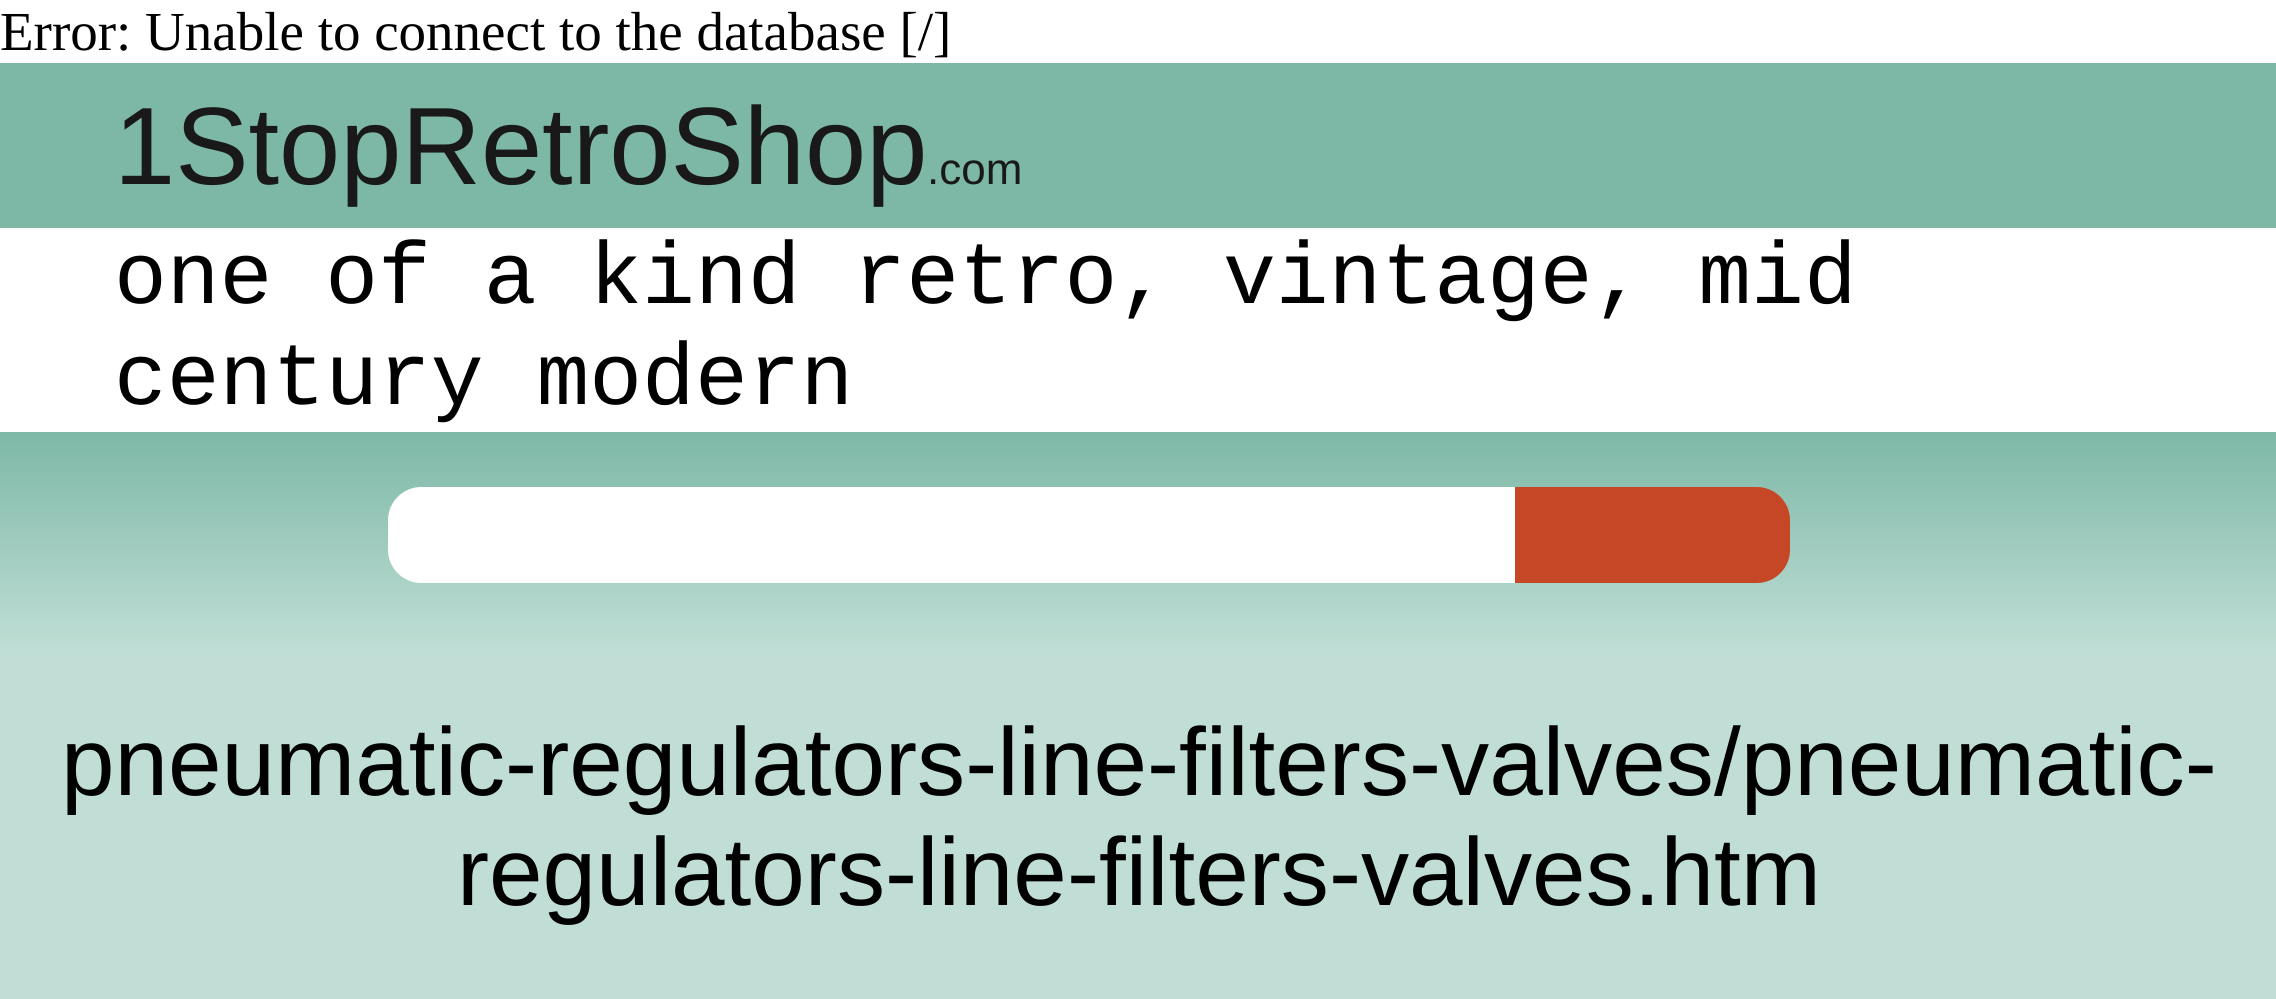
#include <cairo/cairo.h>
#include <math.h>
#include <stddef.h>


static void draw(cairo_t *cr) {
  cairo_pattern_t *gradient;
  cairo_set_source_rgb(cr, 1, 1, 1);
  cairo_paint(cr);
  cairo_set_source_rgb(cr, 125 / 255.0, 184 / 255.0, 166 / 255.0);
  cairo_rectangle(cr, 0, 63, 2276, 165);
  cairo_fill(cr);
  gradient = cairo_pattern_create_linear(1139, 432, 1139, 652);
  cairo_pattern_add_color_stop_rgba(gradient, 0, 125 / 255.0, 184 / 255.0, 166 / 255.0, 1);
  cairo_pattern_add_color_stop_rgba(gradient, 1, 192 / 255.0, 222 / 255.0, 213 / 255.0, 1);
  cairo_set_source(cr, gradient);
  cairo_pattern_destroy(gradient);
  cairo_rectangle(cr, 0, 432, 2276, 220);
  cairo_fill(cr);
  cairo_set_source_rgb(cr, 1, 1, 1);
  cairo_new_path(cr);
  cairo_move_to(cr, 421, 487);
  cairo_line_to(cr, 1515, 487);
  cairo_line_to(cr, 1515, 583);
  cairo_line_to(cr, 421, 583);
  cairo_curve_to(cr, 403, 583, 388, 568, 388, 550);
  cairo_line_to(cr, 388, 520);
  cairo_curve_to(cr, 388, 502, 403, 487, 421, 487);
  cairo_close_path(cr);
  cairo_fill(cr);
  cairo_set_source_rgb(cr, 198 / 255.0, 71 / 255.0, 38 / 255.0);
  cairo_new_path(cr);
  cairo_move_to(cr, 1515, 487);
  cairo_line_to(cr, 1757, 487);
  cairo_curve_to(cr, 1775, 487, 1790, 502, 1790, 520);
  cairo_line_to(cr, 1790, 550);
  cairo_curve_to(cr, 1790, 568, 1775, 583, 1757, 583);
  cairo_line_to(cr, 1515, 583);
  cairo_close_path(cr);
  cairo_fill(cr);
  cairo_set_source_rgb(cr, 192 / 255.0, 222 / 255.0, 213 / 255.0);
  cairo_rectangle(cr, 0, 652, 2276, 347);
  cairo_fill(cr);
  cairo_select_font_face(cr, "Liberation Serif", CAIRO_FONT_SLANT_NORMAL, CAIRO_FONT_WEIGHT_NORMAL);
  cairo_set_font_size(cr, 55);
  cairo_set_source_rgb(cr, 0, 0, 0);
  cairo_move_to(cr, 0, 50);
  cairo_show_text(cr, "Error: Unable to connect to the database [/]");
  cairo_select_font_face(cr, "Liberation Sans", CAIRO_FONT_SLANT_NORMAL, CAIRO_FONT_WEIGHT_NORMAL);
  cairo_set_font_size(cr, 110);
  cairo_set_source_rgb(cr, 25 / 255.0, 25 / 255.0, 25 / 255.0);
  cairo_move_to(cr, 114, 184);
  cairo_show_text(cr, "1StopRetroShop");
  cairo_set_font_size(cr, 44);
  cairo_move_to(cr, 927, 184);
  cairo_show_text(cr, ".com");
  cairo_select_font_face(cr, "Liberation Mono", CAIRO_FONT_SLANT_NORMAL, CAIRO_FONT_WEIGHT_NORMAL);
  cairo_set_font_size(cr, 88);
  cairo_set_source_rgb(cr, 0, 0, 0);
  cairo_move_to(cr, 114, 303);
  cairo_show_text(cr, "one of a kind retro, vintage, mid");
  cairo_move_to(cr, 114, 404);
  cairo_show_text(cr, "century modern");
  cairo_select_font_face(cr, "Liberation Sans", CAIRO_FONT_SLANT_NORMAL, CAIRO_FONT_WEIGHT_NORMAL);
  cairo_set_font_size(cr, 96.25);
  cairo_move_to(cr, 61, 795);
  cairo_show_text(cr, "pneumatic-regulators-line-filters-valves/pneumatic-");
  cairo_move_to(cr, 457, 905);
  cairo_show_text(cr, "regulators-line-filters-valves.htm");
}

int main(void) {
  cairo_surface_t *surface = cairo_image_surface_create(CAIRO_FORMAT_RGB24, 2276, 999);
  cairo_t *cr = cairo_create(surface);
  cairo_font_options_t *options = cairo_font_options_create();
  cairo_font_options_set_hint_metrics(options, CAIRO_HINT_METRICS_OFF);
  cairo_font_options_set_hint_style(options, CAIRO_HINT_STYLE_NONE);
  cairo_set_font_options(cr, options);
  cairo_set_miter_limit(cr, 4);
  draw(cr);
  cairo_surface_write_to_png(surface, "out.png");
  cairo_font_options_destroy(options);
  cairo_destroy(cr);
  cairo_surface_destroy(surface);
  return 0;
}
